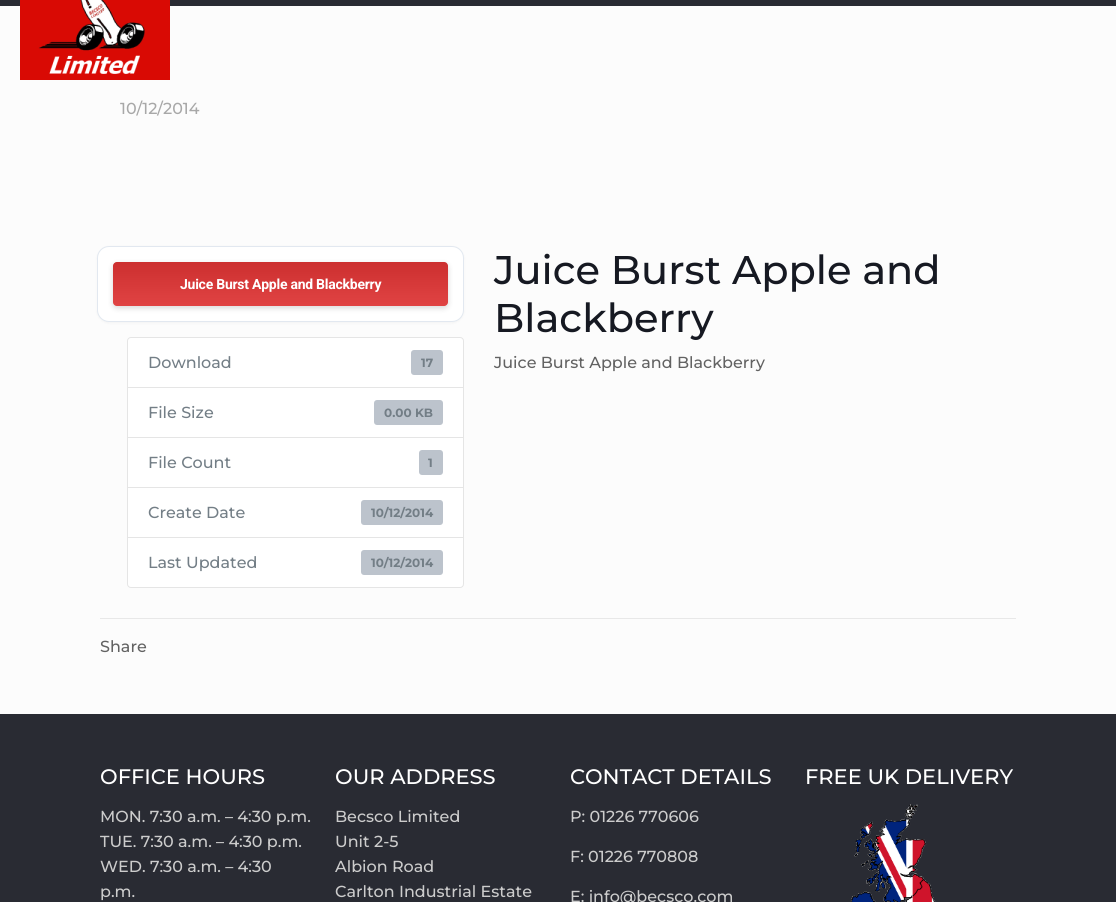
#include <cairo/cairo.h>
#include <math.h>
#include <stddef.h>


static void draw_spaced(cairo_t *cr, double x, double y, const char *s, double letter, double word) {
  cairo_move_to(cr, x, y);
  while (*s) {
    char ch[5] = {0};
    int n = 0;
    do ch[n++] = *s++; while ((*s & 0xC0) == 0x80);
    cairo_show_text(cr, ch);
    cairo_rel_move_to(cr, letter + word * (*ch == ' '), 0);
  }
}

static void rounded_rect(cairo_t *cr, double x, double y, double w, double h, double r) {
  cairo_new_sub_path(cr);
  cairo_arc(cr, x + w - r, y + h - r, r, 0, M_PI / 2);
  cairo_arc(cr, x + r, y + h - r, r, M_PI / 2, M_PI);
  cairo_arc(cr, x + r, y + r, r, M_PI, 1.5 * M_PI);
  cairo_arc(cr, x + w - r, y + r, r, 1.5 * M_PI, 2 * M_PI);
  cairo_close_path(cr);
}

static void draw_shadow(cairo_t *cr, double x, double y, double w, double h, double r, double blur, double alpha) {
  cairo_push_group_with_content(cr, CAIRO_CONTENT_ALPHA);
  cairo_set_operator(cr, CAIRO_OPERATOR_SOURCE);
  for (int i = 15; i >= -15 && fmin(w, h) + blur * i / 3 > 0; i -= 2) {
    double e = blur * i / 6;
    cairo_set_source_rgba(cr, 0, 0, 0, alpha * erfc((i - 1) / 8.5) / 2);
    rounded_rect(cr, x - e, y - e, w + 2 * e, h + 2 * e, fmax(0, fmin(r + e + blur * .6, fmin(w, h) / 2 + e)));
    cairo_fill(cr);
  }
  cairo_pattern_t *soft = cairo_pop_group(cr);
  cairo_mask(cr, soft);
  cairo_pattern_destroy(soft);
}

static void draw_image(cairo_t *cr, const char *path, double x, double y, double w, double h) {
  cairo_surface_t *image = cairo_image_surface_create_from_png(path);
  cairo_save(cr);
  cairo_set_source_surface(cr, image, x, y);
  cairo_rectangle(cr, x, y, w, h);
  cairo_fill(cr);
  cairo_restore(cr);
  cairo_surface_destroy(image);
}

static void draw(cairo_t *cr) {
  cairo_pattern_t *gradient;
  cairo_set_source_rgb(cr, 252 / 255.0, 252 / 255.0, 252 / 255.0);
  cairo_paint(cr);
  cairo_set_source_rgb(cr, 41 / 255.0, 43 / 255.0, 51 / 255.0);
  cairo_rectangle(cr, 0, 0, 1116, 6);
  cairo_fill(cr);
  draw_image(cr, "images/1.png", 20, 0, 150, 80);
  cairo_set_source_rgb(cr, 0, 0, 0);
  draw_shadow(cr, 97, 247, 367, 76, 12, 1.5, 0.04);
  cairo_set_source_rgb(cr, 1, 1, 1);
  rounded_rect(cr, 97.5, 246.5, 366, 75, 11.5);
  cairo_fill_preserve(cr);
  cairo_set_source_rgb(cr, 226 / 255.0, 232 / 255.0, 240 / 255.0);
  cairo_set_line_width(cr, 1);
  cairo_stroke(cr);
  cairo_set_source_rgb(cr, 0, 0, 0);
  draw_shadow(cr, 113, 264, 335, 44, 4, 3, 0.15);
  cairo_set_source_rgb(cr, 221 / 255.0, 51 / 255.0, 51 / 255.0);
  rounded_rect(cr, 113, 262, 335, 44, 4);
  cairo_fill(cr);
  gradient = cairo_pattern_create_linear(281, 262, 281, 306);
  cairo_pattern_add_color_stop_rgba(gradient, 0, 0, 0, 0, 0.08);
  cairo_pattern_add_color_stop_rgba(gradient, 1, 1, 1, 1, 0.08);
  cairo_set_source(cr, gradient);
  cairo_pattern_destroy(gradient);
  rounded_rect(cr, 113, 262, 335, 44, 4);
  cairo_fill(cr);
  cairo_set_source_rgb(cr, 1, 1, 1);
  cairo_new_path(cr);
  cairo_move_to(cr, 131, 337.5);
  cairo_line_to(cr, 460, 337.5);
  cairo_curve_to(cr, 462, 337.5, 463.5, 339, 463.5, 341);
  cairo_line_to(cr, 463.5, 387.5);
  cairo_line_to(cr, 127.5, 387.5);
  cairo_line_to(cr, 127.5, 341);
  cairo_curve_to(cr, 127.5, 339, 129, 337.5, 131, 337.5);
  cairo_close_path(cr);
  cairo_fill_preserve(cr);
  cairo_set_source_rgb(cr, 229 / 255.0, 229 / 255.0, 229 / 255.0);
  cairo_stroke(cr);
  cairo_set_source_rgb(cr, 188 / 255.0, 195 / 255.0, 204 / 255.0);
  rounded_rect(cr, 411, 350, 32, 25, 3);
  cairo_fill(cr);
  cairo_set_source_rgb(cr, 1, 1, 1);
  cairo_rectangle(cr, 127.5, 387.5, 336, 50);
  cairo_fill_preserve(cr);
  cairo_set_source_rgb(cr, 229 / 255.0, 229 / 255.0, 229 / 255.0);
  cairo_stroke(cr);
  cairo_set_source_rgb(cr, 188 / 255.0, 195 / 255.0, 204 / 255.0);
  rounded_rect(cr, 374, 400, 69, 25, 3);
  cairo_fill(cr);
  cairo_set_source_rgb(cr, 1, 1, 1);
  cairo_rectangle(cr, 127.5, 437.5, 336, 50);
  cairo_fill_preserve(cr);
  cairo_set_source_rgb(cr, 229 / 255.0, 229 / 255.0, 229 / 255.0);
  cairo_stroke(cr);
  cairo_set_source_rgb(cr, 188 / 255.0, 195 / 255.0, 204 / 255.0);
  rounded_rect(cr, 419, 450, 24, 25, 3);
  cairo_fill(cr);
  cairo_set_source_rgb(cr, 1, 1, 1);
  cairo_rectangle(cr, 127.5, 487.5, 336, 50);
  cairo_fill_preserve(cr);
  cairo_set_source_rgb(cr, 229 / 255.0, 229 / 255.0, 229 / 255.0);
  cairo_stroke(cr);
  cairo_set_source_rgb(cr, 188 / 255.0, 195 / 255.0, 204 / 255.0);
  rounded_rect(cr, 361, 500, 82, 25, 3);
  cairo_fill(cr);
  cairo_set_source_rgb(cr, 1, 1, 1);
  cairo_new_path(cr);
  cairo_move_to(cr, 127.5, 537.5);
  cairo_line_to(cr, 463.5, 537.5);
  cairo_line_to(cr, 463.5, 584);
  cairo_curve_to(cr, 463.5, 586, 462, 587.5, 460, 587.5);
  cairo_line_to(cr, 131, 587.5);
  cairo_curve_to(cr, 129, 587.5, 127.5, 586, 127.5, 584);
  cairo_close_path(cr);
  cairo_fill_preserve(cr);
  cairo_set_source_rgb(cr, 229 / 255.0, 229 / 255.0, 229 / 255.0);
  cairo_stroke(cr);
  cairo_set_source_rgb(cr, 188 / 255.0, 195 / 255.0, 204 / 255.0);
  rounded_rect(cr, 361, 550, 82, 25, 3);
  cairo_fill(cr);
  cairo_set_source_rgb(cr, 232 / 255.0, 232 / 255.0, 232 / 255.0);
  cairo_rectangle(cr, 100, 618, 916, 1);
  cairo_fill(cr);
  cairo_set_source_rgb(cr, 41 / 255.0, 43 / 255.0, 51 / 255.0);
  cairo_rectangle(cr, 0, 714, 1116, 188);
  cairo_fill(cr);
  draw_image(cr, "images/2.png", 850, 804, 86, 98);
  cairo_select_font_face(cr, "Montserrat Thin", CAIRO_FONT_SLANT_NORMAL, CAIRO_FONT_WEIGHT_NORMAL);
  cairo_set_font_size(cr, 16);
  cairo_set_source_rgb(cr, 168 / 255.0, 168 / 255.0, 168 / 255.0);
  cairo_move_to(cr, 120, 114);
  cairo_show_text(cr, "10/12/2014");
  cairo_select_font_face(cr, "Roboto", CAIRO_FONT_SLANT_NORMAL, CAIRO_FONT_WEIGHT_BOLD);
  cairo_set_font_size(cr, 14);
  cairo_set_source_rgb(cr, 1, 1, 1);
  draw_spaced(cr, 180, 289, "Juice Burst Apple and Blackberry", -0.25, 0);
  cairo_select_font_face(cr, "Montserrat Thin", CAIRO_FONT_SLANT_NORMAL, CAIRO_FONT_WEIGHT_NORMAL);
  cairo_set_font_size(cr, 16);
  cairo_set_source_rgb(cr, 115 / 255.0, 126 / 255.0, 134 / 255.0);
  cairo_move_to(cr, 148, 368);
  cairo_show_text(cr, "Download");
  cairo_select_font_face(cr, "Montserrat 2 Thin", CAIRO_FONT_SLANT_NORMAL, CAIRO_FONT_WEIGHT_NORMAL);
  cairo_set_font_size(cr, 12);
  cairo_move_to(cr, 421, 367);
  cairo_show_text(cr, "17");
  cairo_select_font_face(cr, "Montserrat Thin", CAIRO_FONT_SLANT_NORMAL, CAIRO_FONT_WEIGHT_NORMAL);
  cairo_set_font_size(cr, 16);
  cairo_move_to(cr, 148, 418);
  cairo_show_text(cr, "File Size");
  cairo_select_font_face(cr, "Montserrat 2 Thin", CAIRO_FONT_SLANT_NORMAL, CAIRO_FONT_WEIGHT_NORMAL);
  cairo_set_font_size(cr, 12);
  cairo_move_to(cr, 384, 417);
  cairo_show_text(cr, "0.00 KB");
  cairo_select_font_face(cr, "Montserrat Thin", CAIRO_FONT_SLANT_NORMAL, CAIRO_FONT_WEIGHT_NORMAL);
  cairo_set_font_size(cr, 16);
  cairo_move_to(cr, 148, 468);
  cairo_show_text(cr, "File Count");
  cairo_select_font_face(cr, "Montserrat 2 Thin", CAIRO_FONT_SLANT_NORMAL, CAIRO_FONT_WEIGHT_NORMAL);
  cairo_set_font_size(cr, 12);
  cairo_move_to(cr, 428, 467);
  cairo_show_text(cr, "1");
  cairo_select_font_face(cr, "Montserrat Thin", CAIRO_FONT_SLANT_NORMAL, CAIRO_FONT_WEIGHT_NORMAL);
  cairo_set_font_size(cr, 16);
  cairo_move_to(cr, 148, 518);
  cairo_show_text(cr, "Create Date");
  cairo_select_font_face(cr, "Montserrat 2 Thin", CAIRO_FONT_SLANT_NORMAL, CAIRO_FONT_WEIGHT_NORMAL);
  cairo_set_font_size(cr, 12);
  cairo_move_to(cr, 371, 517);
  cairo_show_text(cr, "10/12/2014");
  cairo_select_font_face(cr, "Montserrat Thin", CAIRO_FONT_SLANT_NORMAL, CAIRO_FONT_WEIGHT_NORMAL);
  cairo_set_font_size(cr, 16);
  cairo_move_to(cr, 148, 568);
  cairo_show_text(cr, "Last Updated");
  cairo_select_font_face(cr, "Montserrat 2 Thin", CAIRO_FONT_SLANT_NORMAL, CAIRO_FONT_WEIGHT_NORMAL);
  cairo_set_font_size(cr, 12);
  cairo_move_to(cr, 371, 567);
  cairo_show_text(cr, "10/12/2014");
  cairo_select_font_face(cr, "Montserrat Thin", CAIRO_FONT_SLANT_NORMAL, CAIRO_FONT_WEIGHT_NORMAL);
  cairo_set_font_size(cr, 40);
  cairo_set_source_rgb(cr, 22 / 255.0, 25 / 255.0, 34 / 255.0);
  cairo_move_to(cr, 494, 284);
  cairo_show_text(cr, "Juice Burst Apple and");
  cairo_move_to(cr, 494, 332);
  cairo_show_text(cr, "Blackberry");
  cairo_set_font_size(cr, 16);
  cairo_set_source_rgb(cr, 98 / 255.0, 98 / 255.0, 98 / 255.0);
  cairo_move_to(cr, 494, 368);
  cairo_show_text(cr, "Juice Burst Apple and Blackberry");
  cairo_move_to(cr, 100, 652);
  cairo_show_text(cr, "Share");
  cairo_set_font_size(cr, 21);
  cairo_set_source_rgb(cr, 1, 1, 1);
  cairo_move_to(cr, 100, 784);
  cairo_show_text(cr, "OFFICE HOURS");
  cairo_set_font_size(cr, 16);
  cairo_set_source_rgb(cr, 204 / 255.0, 204 / 255.0, 204 / 255.0);
  cairo_move_to(cr, 100, 822);
  cairo_show_text(cr, "MON. 7:30 a.m. – 4:30 p.m.");
  cairo_move_to(cr, 100, 847);
  cairo_show_text(cr, "TUE. 7:30 a.m. – 4:30 p.m.");
  cairo_move_to(cr, 100, 872);
  cairo_show_text(cr, "WED. 7:30 a.m. – 4:30");
  cairo_move_to(cr, 100, 897);
  cairo_show_text(cr, "p.m.");
  cairo_set_font_size(cr, 21);
  cairo_set_source_rgb(cr, 1, 1, 1);
  cairo_move_to(cr, 335, 784);
  cairo_show_text(cr, "OUR ADDRESS");
  cairo_set_font_size(cr, 16);
  cairo_set_source_rgb(cr, 204 / 255.0, 204 / 255.0, 204 / 255.0);
  cairo_move_to(cr, 335, 822);
  cairo_show_text(cr, "Becsco Limited");
  cairo_move_to(cr, 335, 847);
  cairo_show_text(cr, "Unit 2-5");
  cairo_move_to(cr, 335, 872);
  cairo_show_text(cr, "Albion Road");
  cairo_move_to(cr, 335, 897);
  cairo_show_text(cr, "Carlton Industrial Estate");
  cairo_set_font_size(cr, 21);
  cairo_set_source_rgb(cr, 1, 1, 1);
  cairo_move_to(cr, 570, 784);
  cairo_show_text(cr, "CONTACT DETAILS");
  cairo_set_font_size(cr, 16);
  cairo_set_source_rgb(cr, 204 / 255.0, 204 / 255.0, 204 / 255.0);
  cairo_move_to(cr, 570, 822);
  cairo_show_text(cr, "P: 01226 770606");
  cairo_move_to(cr, 570, 862);
  cairo_show_text(cr, "F: 01226 770808");
  cairo_move_to(cr, 570, 902);
  cairo_show_text(cr, "E: info@becsco.com");
  cairo_set_font_size(cr, 21);
  cairo_set_source_rgb(cr, 1, 1, 1);
  cairo_move_to(cr, 805, 784);
  cairo_show_text(cr, "FREE UK DELIVERY");
}

int main(void) {
  cairo_surface_t *surface = cairo_image_surface_create(CAIRO_FORMAT_RGB24, 1116, 902);
  cairo_t *cr = cairo_create(surface);
  cairo_font_options_t *options = cairo_font_options_create();
  cairo_font_options_set_hint_metrics(options, CAIRO_HINT_METRICS_OFF);
  cairo_font_options_set_hint_style(options, CAIRO_HINT_STYLE_NONE);
  cairo_set_font_options(cr, options);
  cairo_set_miter_limit(cr, 4);
  draw(cr);
  cairo_surface_write_to_png(surface, "out.png");
  cairo_font_options_destroy(options);
  cairo_destroy(cr);
  cairo_surface_destroy(surface);
  return 0;
}
